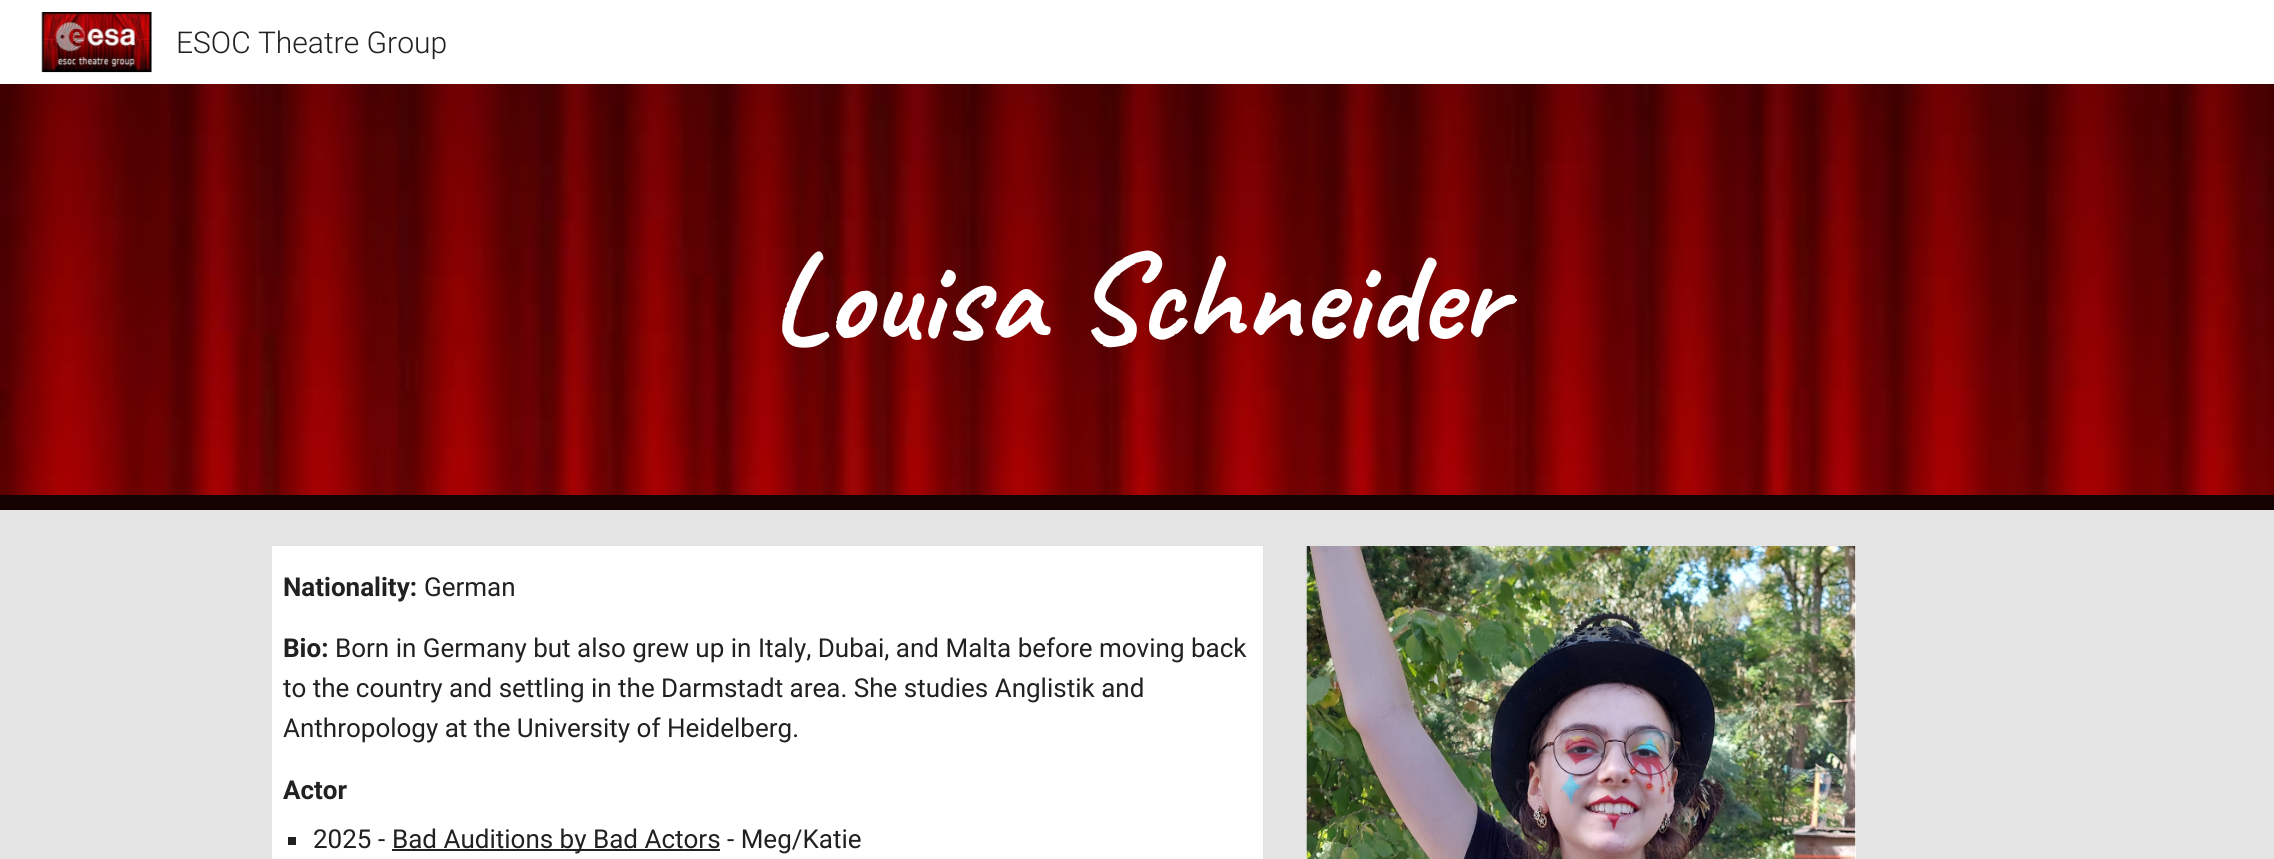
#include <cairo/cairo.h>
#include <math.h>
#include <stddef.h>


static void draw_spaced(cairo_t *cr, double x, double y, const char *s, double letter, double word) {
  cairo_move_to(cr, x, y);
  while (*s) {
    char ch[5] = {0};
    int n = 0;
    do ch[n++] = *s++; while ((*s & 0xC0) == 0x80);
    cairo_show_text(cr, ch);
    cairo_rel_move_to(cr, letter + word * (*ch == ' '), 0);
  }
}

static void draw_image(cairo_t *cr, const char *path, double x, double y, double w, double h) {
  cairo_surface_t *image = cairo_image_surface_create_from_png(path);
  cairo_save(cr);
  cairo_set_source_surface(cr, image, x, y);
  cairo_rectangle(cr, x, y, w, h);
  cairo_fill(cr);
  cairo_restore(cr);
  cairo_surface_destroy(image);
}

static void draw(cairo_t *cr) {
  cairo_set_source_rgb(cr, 229 / 255.0, 228 / 255.0, 228 / 255.0);
  cairo_paint(cr);
  cairo_set_source_rgb(cr, 1, 1, 1);
  cairo_rectangle(cr, 0, 0, 2274, 84);
  cairo_fill(cr);
  draw_image(cr, "images/1.png", 41, 12, 111, 61);
  draw_image(cr, "images/2.png", 0, 84, 2274, 411);
  cairo_set_source_rgb(cr, 21 / 255.0, 3 / 255.0, 3 / 255.0);
  cairo_rectangle(cr, 0, 495, 2274, 15);
  cairo_fill(cr);
  cairo_set_source_rgb(cr, 1, 1, 1);
  cairo_rectangle(cr, 272, 546, 991, 313);
  cairo_fill(cr);
  cairo_set_source_rgb(cr, 33 / 255.0, 33 / 255.0, 33 / 255.0);
  cairo_rectangle(cr, 288, 837, 8, 8);
  cairo_fill(cr);
  cairo_rectangle(cr, 392, 849, 328, 2);
  cairo_fill(cr);
  cairo_set_source_rgb(cr, 1, 1, 1);
  cairo_rectangle(cr, 1855, 546, 1, 313);
  cairo_fill(cr);
  draw_image(cr, "images/3.png", 1306, 546, 550, 313);
  cairo_select_font_face(cr, "Roboto Light", CAIRO_FONT_SLANT_NORMAL, CAIRO_FONT_WEIGHT_NORMAL);
  cairo_set_font_size(cr, 30);
  cairo_set_source_rgb(cr, 33 / 255.0, 33 / 255.0, 33 / 255.0);
  cairo_move_to(cr, 176, 53);
  cairo_show_text(cr, "ESOC Theatre Group");
  cairo_select_font_face(cr, "Caveat", CAIRO_FONT_SLANT_NORMAL, CAIRO_FONT_WEIGHT_BOLD);
  cairo_set_font_size(cr, 126);
  cairo_set_source_rgb(cr, 1, 1, 1);
  draw_spaced(cr, 771, 339, "Louisa Schneider", 0, 2);
  cairo_select_font_face(cr, "Roboto", CAIRO_FONT_SLANT_NORMAL, CAIRO_FONT_WEIGHT_BOLD);
  cairo_set_font_size(cr, 26);
  cairo_set_source_rgb(cr, 33 / 255.0, 33 / 255.0, 33 / 255.0);
  cairo_move_to(cr, 283, 596);
  cairo_show_text(cr, "Nationality:");
  cairo_select_font_face(cr, "Roboto", CAIRO_FONT_SLANT_NORMAL, CAIRO_FONT_WEIGHT_NORMAL);
  cairo_move_to(cr, 424, 596);
  cairo_show_text(cr, "German");
  cairo_select_font_face(cr, "Roboto", CAIRO_FONT_SLANT_NORMAL, CAIRO_FONT_WEIGHT_BOLD);
  cairo_move_to(cr, 283, 657);
  cairo_show_text(cr, "Bio:");
  cairo_select_font_face(cr, "Roboto", CAIRO_FONT_SLANT_NORMAL, CAIRO_FONT_WEIGHT_NORMAL);
  cairo_move_to(cr, 335, 657);
  cairo_show_text(cr, "Born in Germany but also grew up in Italy, Dubai, and Malta before moving back");
  cairo_move_to(cr, 283, 697);
  cairo_show_text(cr, "to the country and settling in the Darmstadt area. She studies Anglistik and");
  cairo_move_to(cr, 283, 737);
  cairo_show_text(cr, "Anthropology at the University of Heidelberg.");
  cairo_select_font_face(cr, "Roboto", CAIRO_FONT_SLANT_NORMAL, CAIRO_FONT_WEIGHT_BOLD);
  cairo_move_to(cr, 283, 799);
  cairo_show_text(cr, "Actor");
  cairo_select_font_face(cr, "Roboto", CAIRO_FONT_SLANT_NORMAL, CAIRO_FONT_WEIGHT_NORMAL);
  cairo_move_to(cr, 313, 848);
  cairo_show_text(cr, "2025 -");
  cairo_move_to(cr, 392, 848);
  cairo_show_text(cr, "Bad Auditions by Bad Actors - Meg/Katie");
}

int main(void) {
  cairo_surface_t *surface = cairo_image_surface_create(CAIRO_FORMAT_RGB24, 2274, 859);
  cairo_t *cr = cairo_create(surface);
  cairo_font_options_t *options = cairo_font_options_create();
  cairo_font_options_set_hint_metrics(options, CAIRO_HINT_METRICS_OFF);
  cairo_font_options_set_hint_style(options, CAIRO_HINT_STYLE_NONE);
  cairo_set_font_options(cr, options);
  cairo_set_miter_limit(cr, 4);
  draw(cr);
  cairo_surface_write_to_png(surface, "out.png");
  cairo_font_options_destroy(options);
  cairo_destroy(cr);
  cairo_surface_destroy(surface);
  return 0;
}
